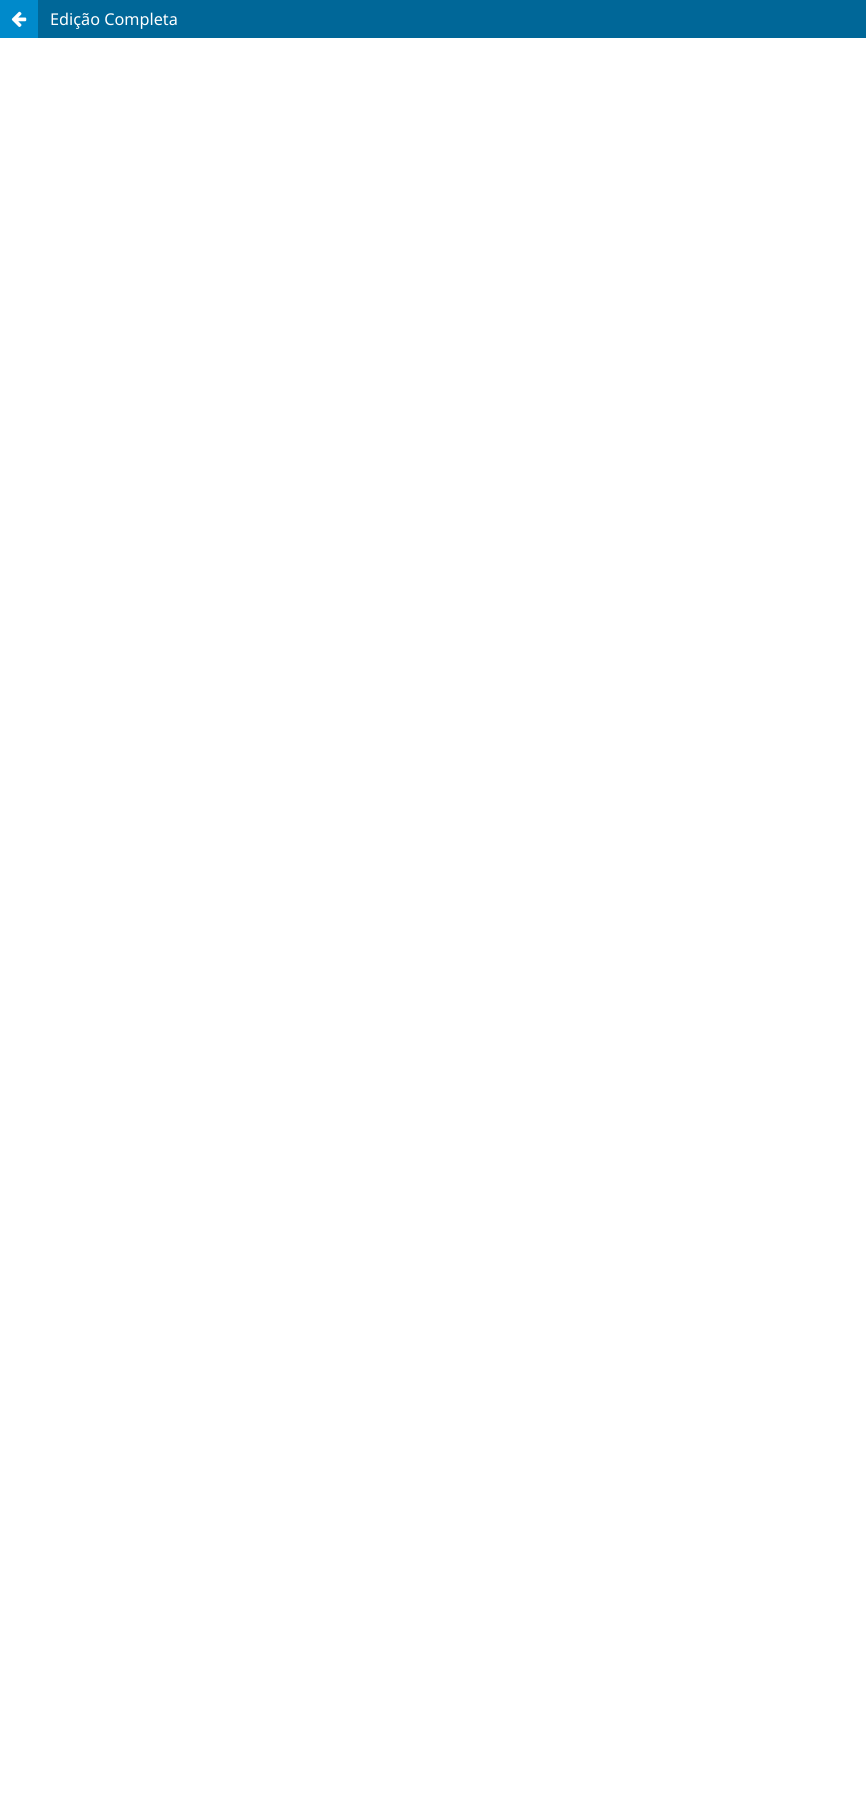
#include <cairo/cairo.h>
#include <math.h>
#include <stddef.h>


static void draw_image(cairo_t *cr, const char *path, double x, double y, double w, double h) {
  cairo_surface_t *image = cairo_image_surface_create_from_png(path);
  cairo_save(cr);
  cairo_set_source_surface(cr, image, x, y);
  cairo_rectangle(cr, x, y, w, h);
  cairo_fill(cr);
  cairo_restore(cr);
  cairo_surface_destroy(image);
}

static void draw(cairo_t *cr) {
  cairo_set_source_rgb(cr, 1, 1, 1);
  cairo_paint(cr);
  cairo_set_source_rgb(cr, 0, 103 / 255.0, 152 / 255.0);
  cairo_rectangle(cr, 38, 0, 828, 38);
  cairo_fill(cr);
  cairo_set_source_rgb(cr, 0, 138 / 255.0, 203 / 255.0);
  cairo_rectangle(cr, 0, 0, 38, 38);
  cairo_fill(cr);
  draw_image(cr, "images/1.png", 11, 11, 16, 16);
  cairo_select_font_face(cr, "Noto Sans", CAIRO_FONT_SLANT_NORMAL, CAIRO_FONT_WEIGHT_NORMAL);
  cairo_set_font_size(cr, 16.25);
  cairo_set_source_rgb(cr, 1, 1, 1);
  cairo_move_to(cr, 50, 25);
  cairo_show_text(cr, "Edição Completa");
}

int main(void) {
  cairo_surface_t *surface = cairo_image_surface_create(CAIRO_FORMAT_RGB24, 866, 1806);
  cairo_t *cr = cairo_create(surface);
  cairo_font_options_t *options = cairo_font_options_create();
  cairo_font_options_set_hint_metrics(options, CAIRO_HINT_METRICS_OFF);
  cairo_font_options_set_hint_style(options, CAIRO_HINT_STYLE_NONE);
  cairo_set_font_options(cr, options);
  cairo_set_miter_limit(cr, 4);
  draw(cr);
  cairo_surface_write_to_png(surface, "out.png");
  cairo_font_options_destroy(options);
  cairo_destroy(cr);
  cairo_surface_destroy(surface);
  return 0;
}
